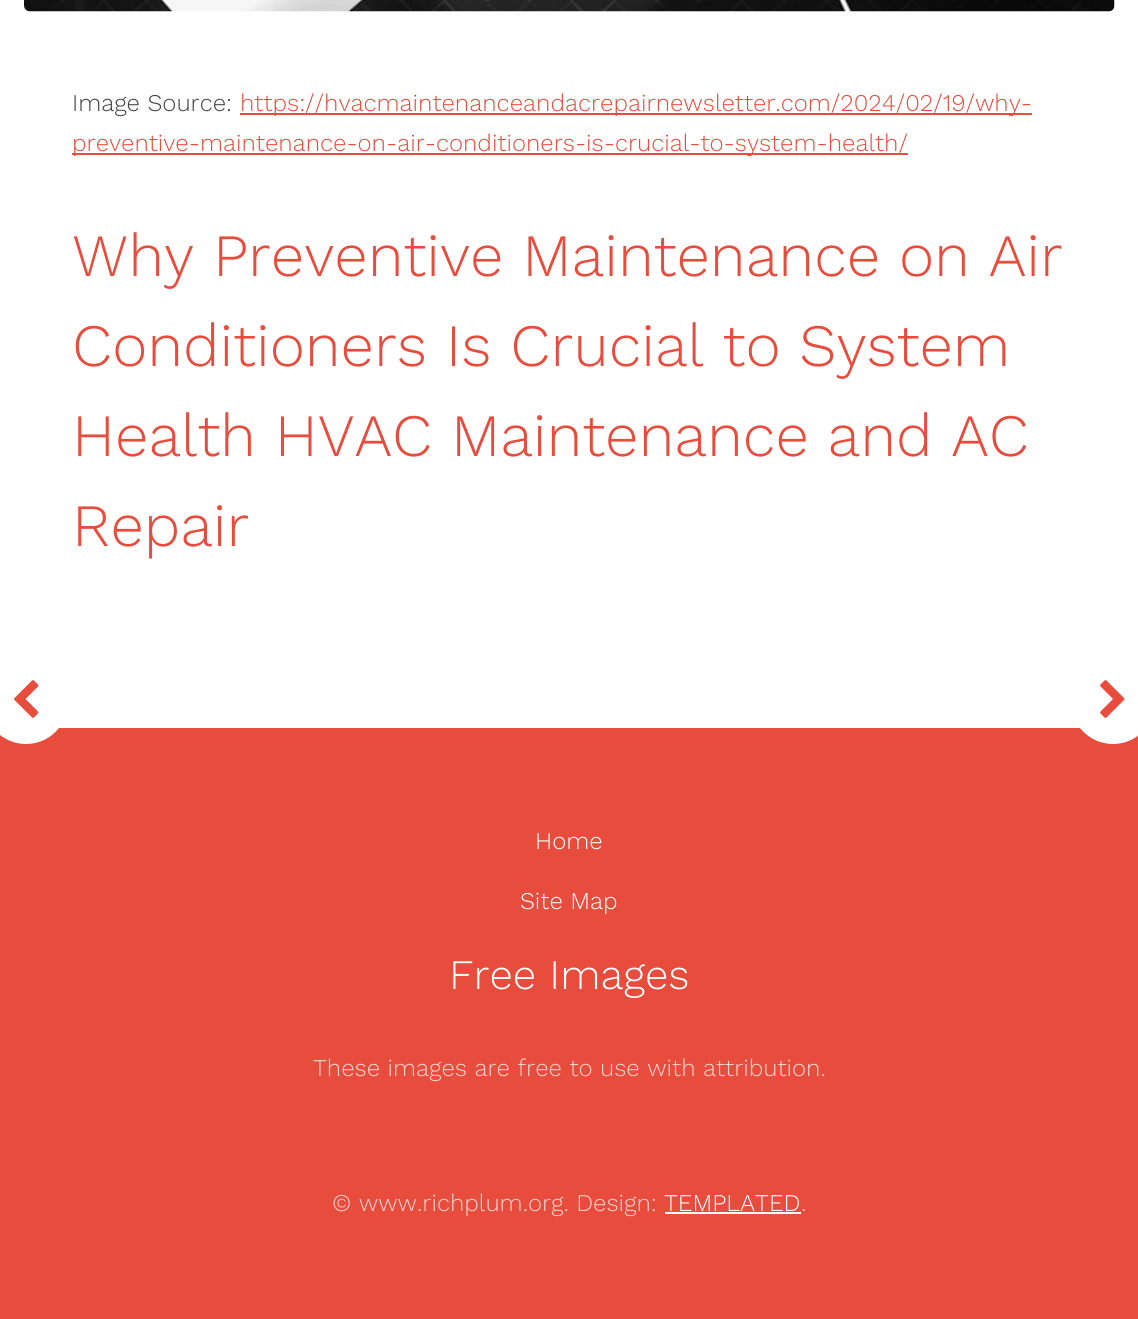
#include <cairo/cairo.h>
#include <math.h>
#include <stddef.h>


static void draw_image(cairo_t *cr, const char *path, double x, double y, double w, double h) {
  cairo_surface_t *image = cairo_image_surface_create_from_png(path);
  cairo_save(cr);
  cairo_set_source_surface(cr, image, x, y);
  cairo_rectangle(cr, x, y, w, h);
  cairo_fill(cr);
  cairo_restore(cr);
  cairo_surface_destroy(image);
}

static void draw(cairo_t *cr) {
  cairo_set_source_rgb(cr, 1, 1, 1);
  cairo_paint(cr);
  draw_image(cr, "images/1.png", 24, 0, 1091, 12);
  cairo_set_source_rgb(cr, 231 / 255.0, 76 / 255.0, 60 / 255.0);
  cairo_rectangle(cr, 240, 113, 792, 2);
  cairo_fill(cr);
  cairo_rectangle(cr, 72, 153, 836, 2);
  cairo_fill(cr);
  cairo_rectangle(cr, 0, 728, 1138, 591);
  cairo_fill(cr);
  cairo_set_source_rgb(cr, 1, 1, 1);
  cairo_arc(cr, 26, 702, 42, 0, 2 * M_PI);
  cairo_fill(cr);
  draw_image(cr, "images/2.png", 14, 680, 25, 38);
  cairo_arc(cr, 1113, 702, 42, 0, 2 * M_PI);
  cairo_fill(cr);
  draw_image(cr, "images/3.png", 1100, 680, 25, 38);
  cairo_rectangle(cr, 665, 1212, 136, 2);
  cairo_fill(cr);
  cairo_select_font_face(cr, "Work Sans Light", CAIRO_FONT_SLANT_NORMAL, CAIRO_FONT_WEIGHT_NORMAL);
  cairo_set_font_size(cr, 24);
  cairo_set_source_rgb(cr, 68 / 255.0, 68 / 255.0, 68 / 255.0);
  cairo_move_to(cr, 72, 111);
  cairo_show_text(cr, "Image Source:");
  cairo_set_source_rgb(cr, 231 / 255.0, 76 / 255.0, 60 / 255.0);
  cairo_move_to(cr, 240, 111);
  cairo_show_text(cr, "https://hvacmaintenanceandacrepairnewsletter.com/2024/02/19/why-");
  cairo_move_to(cr, 72, 151);
  cairo_show_text(cr, "preventive-maintenance-on-air-conditioners-is-crucial-to-system-health/");
  cairo_set_font_size(cr, 60);
  cairo_move_to(cr, 72, 276);
  cairo_show_text(cr, "Why Preventive Maintenance on Air");
  cairo_move_to(cr, 72, 366);
  cairo_show_text(cr, "Conditioners Is Crucial to System");
  cairo_move_to(cr, 72, 456);
  cairo_show_text(cr, "Health HVAC Maintenance and AC");
  cairo_move_to(cr, 72, 546);
  cairo_show_text(cr, "Repair");
  cairo_set_font_size(cr, 24);
  cairo_set_source_rgb(cr, 1, 1, 1);
  cairo_move_to(cr, 535, 849);
  cairo_show_text(cr, "Home");
  cairo_move_to(cr, 520, 909);
  cairo_show_text(cr, "Site Map");
  cairo_set_font_size(cr, 42);
  cairo_move_to(cr, 449, 989);
  cairo_show_text(cr, "Free Images");
  cairo_set_font_size(cr, 24);
  cairo_set_source_rgb(cr, 249 / 255.0, 210 / 255.0, 206 / 255.0);
  cairo_move_to(cr, 313, 1076);
  cairo_show_text(cr, "These images are free to use with attribution.");
  cairo_move_to(cr, 332, 1211);
  cairo_show_text(cr, "© www.richplum.org. Design:");
  cairo_set_source_rgb(cr, 1, 1, 1);
  cairo_move_to(cr, 664, 1211);
  cairo_show_text(cr, "TEMPLATED");
  cairo_set_source_rgb(cr, 249 / 255.0, 210 / 255.0, 206 / 255.0);
  cairo_move_to(cr, 801, 1211);
  cairo_show_text(cr, ".");
}

int main(void) {
  cairo_surface_t *surface = cairo_image_surface_create(CAIRO_FORMAT_RGB24, 1138, 1319);
  cairo_t *cr = cairo_create(surface);
  cairo_font_options_t *options = cairo_font_options_create();
  cairo_font_options_set_hint_metrics(options, CAIRO_HINT_METRICS_OFF);
  cairo_font_options_set_hint_style(options, CAIRO_HINT_STYLE_NONE);
  cairo_set_font_options(cr, options);
  cairo_set_miter_limit(cr, 4);
  draw(cr);
  cairo_surface_write_to_png(surface, "out.png");
  cairo_font_options_destroy(options);
  cairo_destroy(cr);
  cairo_surface_destroy(surface);
  return 0;
}
